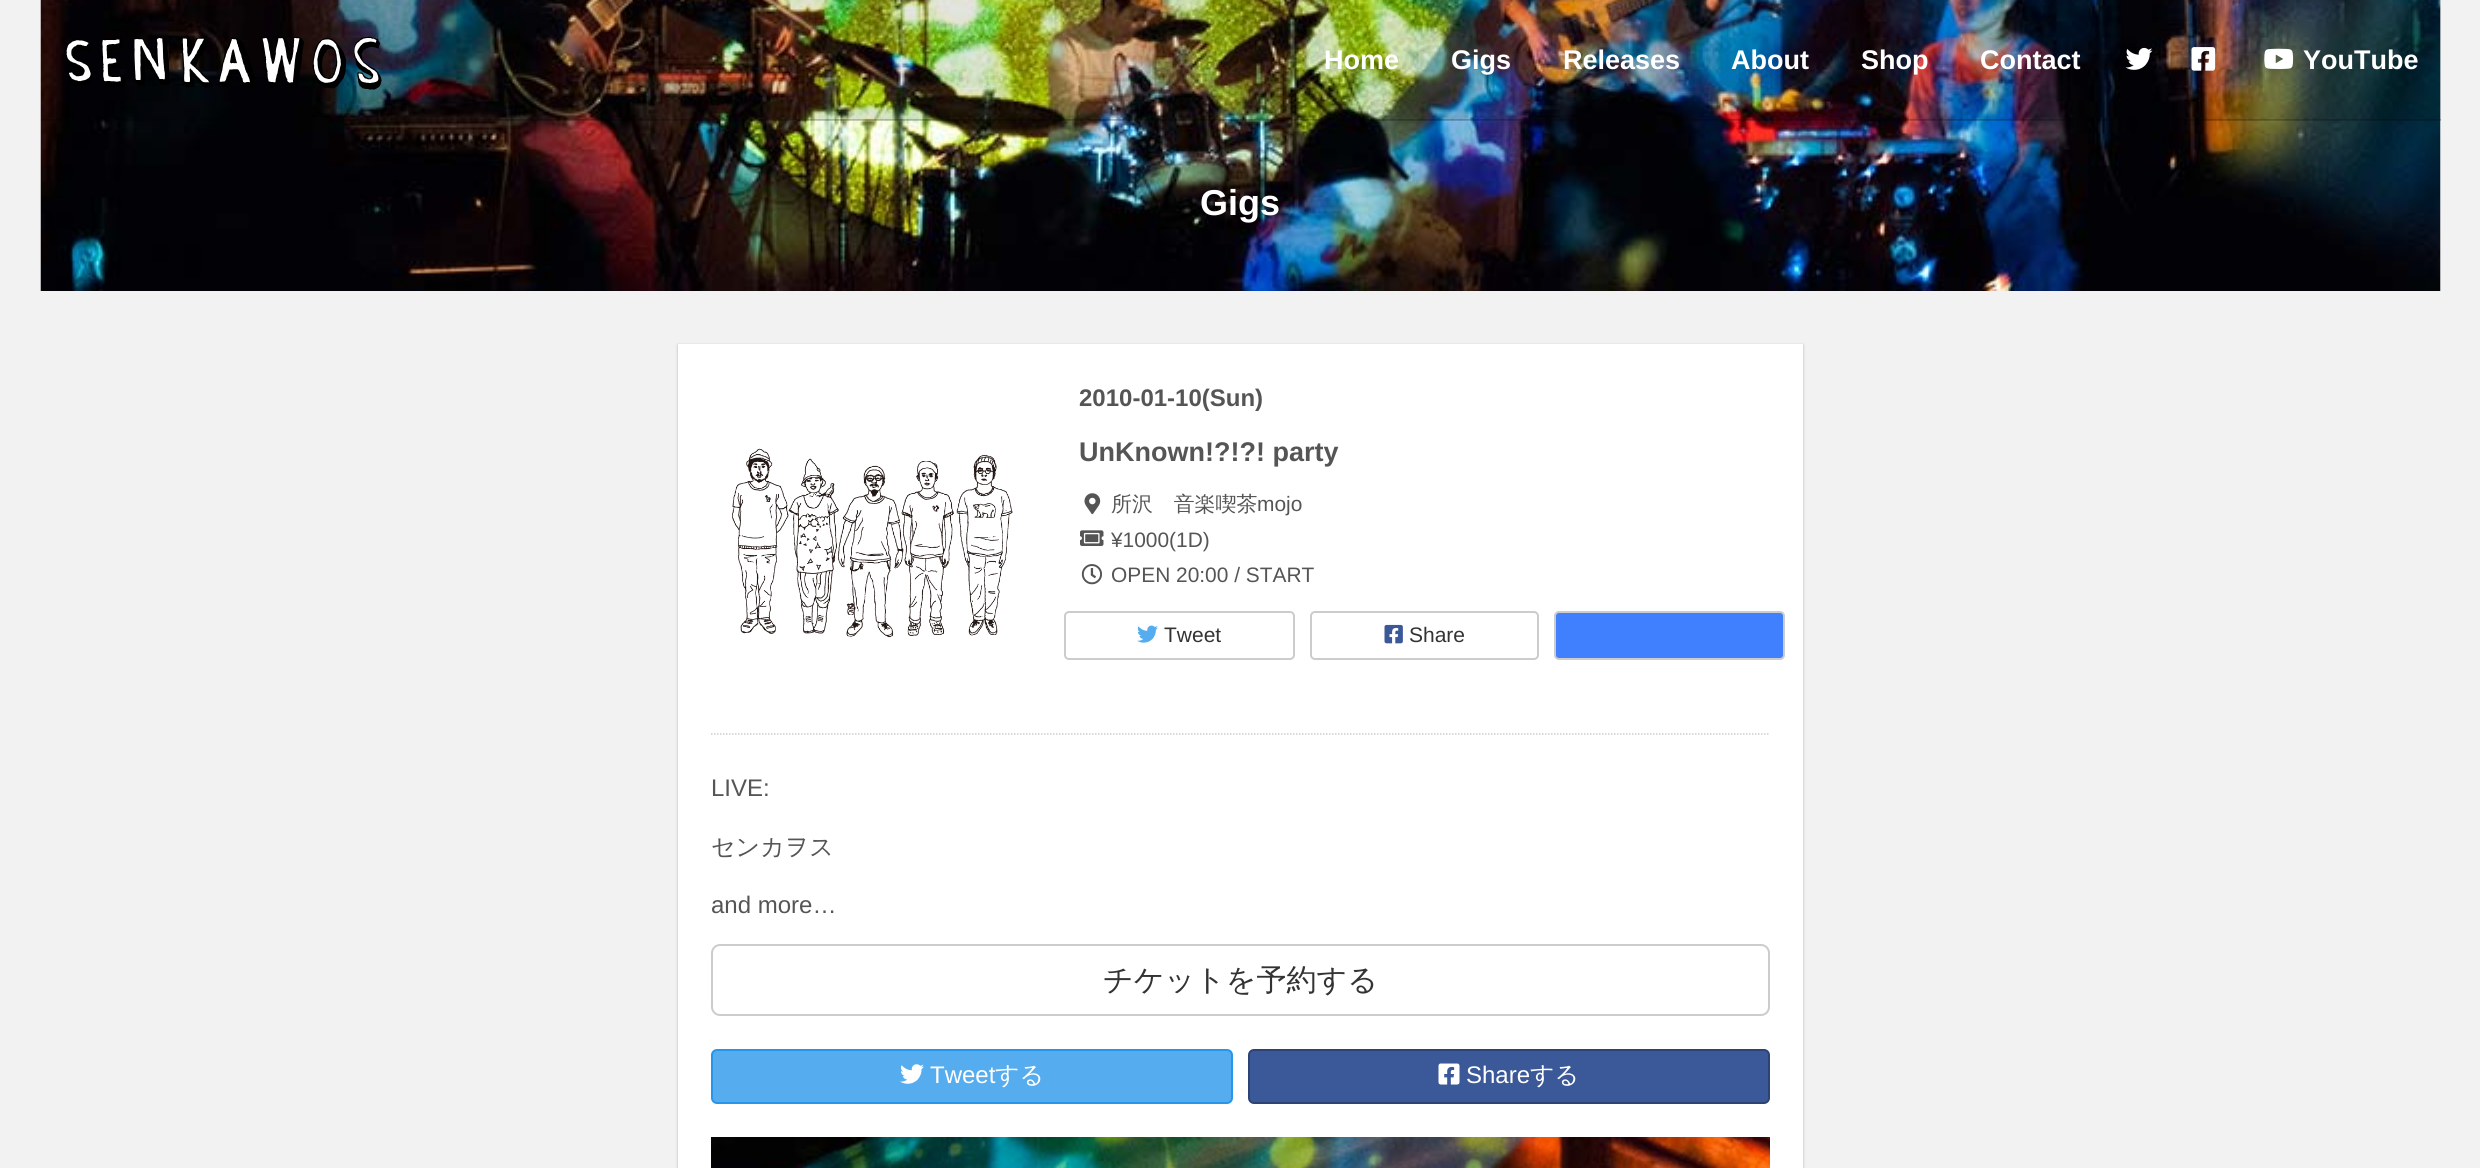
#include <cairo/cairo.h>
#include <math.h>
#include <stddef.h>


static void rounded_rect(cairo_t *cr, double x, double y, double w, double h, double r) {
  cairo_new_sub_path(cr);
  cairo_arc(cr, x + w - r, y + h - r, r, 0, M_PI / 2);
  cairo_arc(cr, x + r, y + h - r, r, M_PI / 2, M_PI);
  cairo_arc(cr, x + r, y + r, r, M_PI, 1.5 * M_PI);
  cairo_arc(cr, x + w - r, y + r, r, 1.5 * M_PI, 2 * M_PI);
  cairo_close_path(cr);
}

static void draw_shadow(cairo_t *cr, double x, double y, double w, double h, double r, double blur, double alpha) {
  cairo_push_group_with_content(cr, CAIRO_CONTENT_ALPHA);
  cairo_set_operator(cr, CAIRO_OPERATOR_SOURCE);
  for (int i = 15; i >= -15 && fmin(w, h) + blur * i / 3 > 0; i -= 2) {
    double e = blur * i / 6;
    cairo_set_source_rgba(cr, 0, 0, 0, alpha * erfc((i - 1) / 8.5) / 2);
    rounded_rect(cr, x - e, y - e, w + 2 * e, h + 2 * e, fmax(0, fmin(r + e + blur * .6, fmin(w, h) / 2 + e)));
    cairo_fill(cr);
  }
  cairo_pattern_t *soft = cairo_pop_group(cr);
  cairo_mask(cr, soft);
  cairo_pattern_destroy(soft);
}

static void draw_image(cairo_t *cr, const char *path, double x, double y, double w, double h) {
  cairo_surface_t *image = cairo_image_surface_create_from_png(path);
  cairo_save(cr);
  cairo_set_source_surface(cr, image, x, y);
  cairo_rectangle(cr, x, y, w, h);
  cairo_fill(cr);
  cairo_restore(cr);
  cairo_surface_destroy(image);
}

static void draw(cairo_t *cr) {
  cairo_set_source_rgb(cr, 242 / 255.0, 242 / 255.0, 242 / 255.0);
  cairo_paint(cr);
  draw_image(cr, "images/5.png", 40, 0, 2401, 291);
  cairo_set_source_rgba(cr, 0, 0, 0, 0.1);
  cairo_rectangle(cr, 41, 0, 2400, 120);
  cairo_fill(cr);
  cairo_set_source_rgba(cr, 0, 0, 0, 0.2);
  cairo_rectangle(cr, 41, 119, 2400, 2);
  cairo_fill(cr);
  draw_image(cr, "images/1.png", 65, 36, 317, 54);
  draw_image(cr, "images/2.png", 2125, 47, 28, 23);
  draw_image(cr, "images/3.png", 2191, 47, 25, 24);
  draw_image(cr, "images/4.png", 2264, 48, 30, 21);
  cairo_set_source_rgb(cr, 0, 0, 0);
  draw_shadow(cr, 678, 345, 1125, 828, 0, 1.5, 0.25);
  cairo_set_source_rgb(cr, 1, 1, 1);
  cairo_rectangle(cr, 678, 344, 1125, 824);
  cairo_fill(cr);
  cairo_new_path(cr);
  cairo_move_to(cr, 711, 734);
  cairo_line_to(cr, 1770, 734);
  cairo_set_source_rgb(cr, 204 / 255.0, 204 / 255.0, 204 / 255.0);
  cairo_set_line_width(cr, 1.5);
  cairo_set_dash(cr, (double[]){1.5, 1.5}, 2, 0);
  cairo_stroke(cr);
  draw_image(cr, "images/6.png", 732, 448, 281, 190);
  draw_image(cr, "images/7.png", 1084, 493, 17, 22);
  draw_image(cr, "images/8.png", 1080, 530, 24, 16);
  draw_image(cr, "images/9.png", 1081, 564, 21, 21);
  rounded_rect(cr, 1065, 612, 229, 47, 4);
  cairo_set_line_width(cr, 2);
  cairo_set_dash(cr, NULL, 0, 0);
  cairo_stroke(cr);
  draw_image(cr, "images/10.png", 1137, 625, 21, 18);
  rounded_rect(cr, 1311, 612, 227, 47, 4);
  cairo_stroke(cr);
  draw_image(cr, "images/11.png", 1384, 624, 19, 20);
  cairo_set_source_rgb(cr, 64 / 255.0, 128 / 255.0, 1);
  rounded_rect(cr, 1555, 612, 229, 47, 4);
  cairo_fill_preserve(cr);
  cairo_set_source_rgb(cr, 204 / 255.0, 204 / 255.0, 204 / 255.0);
  cairo_stroke(cr);
  rounded_rect(cr, 712, 945, 1057, 70, 8);
  cairo_stroke(cr);
  cairo_set_source_rgb(cr, 85 / 255.0, 172 / 255.0, 238 / 255.0);
  rounded_rect(cr, 712, 1050, 520, 53, 5);
  cairo_fill_preserve(cr);
  cairo_set_source_rgb(cr, 39 / 255.0, 149 / 255.0, 233 / 255.0);
  cairo_stroke(cr);
  draw_image(cr, "images/12.png", 900, 1064, 24, 20);
  cairo_set_source_rgb(cr, 59 / 255.0, 89 / 255.0, 152 / 255.0);
  rounded_rect(cr, 1249, 1050, 520, 53, 5);
  cairo_fill_preserve(cr);
  cairo_set_source_rgb(cr, 45 / 255.0, 67 / 255.0, 115 / 255.0);
  cairo_stroke(cr);
  draw_image(cr, "images/13.png", 1438, 1063, 22, 22);
  draw_image(cr, "images/14.png", 711, 1137, 1059, 31);
  cairo_select_font_face(cr, "Liberation Sans", CAIRO_FONT_SLANT_NORMAL, CAIRO_FONT_WEIGHT_BOLD);
  cairo_set_font_size(cr, 27);
  cairo_set_source_rgb(cr, 1, 1, 1);
  cairo_move_to(cr, 1324, 69);
  cairo_show_text(cr, "Home");
  cairo_move_to(cr, 1451, 69);
  cairo_show_text(cr, "Gigs");
  cairo_move_to(cr, 1563, 69);
  cairo_show_text(cr, "Releases");
  cairo_move_to(cr, 1731, 69);
  cairo_show_text(cr, "About");
  cairo_move_to(cr, 1861, 69);
  cairo_show_text(cr, "Shop");
  cairo_move_to(cr, 1980, 69);
  cairo_show_text(cr, "Contact");
  cairo_move_to(cr, 2303, 69);
  cairo_show_text(cr, "YouTube");
  cairo_set_font_size(cr, 36);
  cairo_move_to(cr, 1200, 215);
  cairo_show_text(cr, "Gigs");
  cairo_set_font_size(cr, 24);
  cairo_set_source_rgb(cr, 85 / 255.0, 85 / 255.0, 85 / 255.0);
  cairo_move_to(cr, 1079, 406);
  cairo_show_text(cr, "2010-01-10(Sun)");
  cairo_set_font_size(cr, 27);
  cairo_move_to(cr, 1079, 461);
  cairo_show_text(cr, "UnKnown!?!?! party");
  cairo_select_font_face(cr, "WenQuanYi Zen Hei Medium", CAIRO_FONT_SLANT_NORMAL, CAIRO_FONT_WEIGHT_NORMAL);
  cairo_set_font_size(cr, 20.9);
  cairo_move_to(cr, 1111, 511);
  cairo_show_text(cr, "所沢　音楽喫茶");
  cairo_select_font_face(cr, "Liberation Sans", CAIRO_FONT_SLANT_NORMAL, CAIRO_FONT_WEIGHT_NORMAL);
  cairo_move_to(cr, 1257, 511);
  cairo_show_text(cr, "mojo");
  cairo_move_to(cr, 1111, 547);
  cairo_show_text(cr, "¥1000(1D)");
  cairo_move_to(cr, 1111, 582);
  cairo_show_text(cr, "OPEN 20:00 / START");
  cairo_set_font_size(cr, 21);
  cairo_set_source_rgb(cr, 51 / 255.0, 51 / 255.0, 51 / 255.0);
  cairo_move_to(cr, 1164, 642);
  cairo_show_text(cr, "Tweet");
  cairo_move_to(cr, 1409, 642);
  cairo_show_text(cr, "Share");
  cairo_set_font_size(cr, 24);
  cairo_set_source_rgb(cr, 85 / 255.0, 85 / 255.0, 85 / 255.0);
  cairo_move_to(cr, 711, 796);
  cairo_show_text(cr, "LIVE:");
  cairo_select_font_face(cr, "WenQuanYi Zen Hei Medium", CAIRO_FONT_SLANT_NORMAL, CAIRO_FONT_WEIGHT_NORMAL);
  cairo_move_to(cr, 711, 855);
  cairo_show_text(cr, "センカヲス");
  cairo_select_font_face(cr, "Liberation Sans", CAIRO_FONT_SLANT_NORMAL, CAIRO_FONT_WEIGHT_NORMAL);
  cairo_move_to(cr, 711, 913);
  cairo_show_text(cr, "and more…");
  cairo_select_font_face(cr, "WenQuanYi Zen Hei Medium", CAIRO_FONT_SLANT_NORMAL, CAIRO_FONT_WEIGHT_NORMAL);
  cairo_set_font_size(cr, 30);
  cairo_set_source_rgb(cr, 51 / 255.0, 51 / 255.0, 51 / 255.0);
  cairo_move_to(cr, 1103, 990);
  cairo_show_text(cr, "チケットを予約する");
  cairo_select_font_face(cr, "Liberation Sans", CAIRO_FONT_SLANT_NORMAL, CAIRO_FONT_WEIGHT_NORMAL);
  cairo_set_font_size(cr, 24);
  cairo_set_source_rgb(cr, 1, 1, 1);
  cairo_move_to(cr, 930, 1083);
  cairo_show_text(cr, "Tweet");
  cairo_select_font_face(cr, "WenQuanYi Zen Hei Medium", CAIRO_FONT_SLANT_NORMAL, CAIRO_FONT_WEIGHT_NORMAL);
  cairo_move_to(cr, 995, 1083);
  cairo_show_text(cr, "する");
  cairo_select_font_face(cr, "Liberation Sans", CAIRO_FONT_SLANT_NORMAL, CAIRO_FONT_WEIGHT_NORMAL);
  cairo_move_to(cr, 1466, 1083);
  cairo_show_text(cr, "Share");
  cairo_select_font_face(cr, "WenQuanYi Zen Hei Medium", CAIRO_FONT_SLANT_NORMAL, CAIRO_FONT_WEIGHT_NORMAL);
  cairo_move_to(cr, 1530, 1083);
  cairo_show_text(cr, "する");
}

int main(void) {
  cairo_surface_t *surface = cairo_image_surface_create(CAIRO_FORMAT_RGB24, 2480, 1168);
  cairo_t *cr = cairo_create(surface);
  cairo_font_options_t *options = cairo_font_options_create();
  cairo_font_options_set_hint_metrics(options, CAIRO_HINT_METRICS_OFF);
  cairo_font_options_set_hint_style(options, CAIRO_HINT_STYLE_NONE);
  cairo_set_font_options(cr, options);
  cairo_set_miter_limit(cr, 4);
  draw(cr);
  cairo_surface_write_to_png(surface, "out.png");
  cairo_font_options_destroy(options);
  cairo_destroy(cr);
  cairo_surface_destroy(surface);
  return 0;
}
